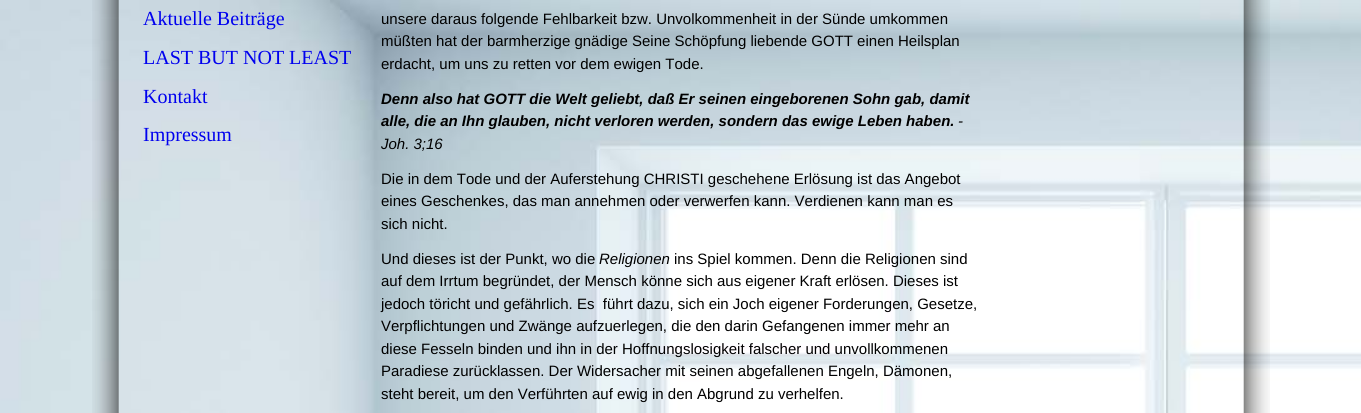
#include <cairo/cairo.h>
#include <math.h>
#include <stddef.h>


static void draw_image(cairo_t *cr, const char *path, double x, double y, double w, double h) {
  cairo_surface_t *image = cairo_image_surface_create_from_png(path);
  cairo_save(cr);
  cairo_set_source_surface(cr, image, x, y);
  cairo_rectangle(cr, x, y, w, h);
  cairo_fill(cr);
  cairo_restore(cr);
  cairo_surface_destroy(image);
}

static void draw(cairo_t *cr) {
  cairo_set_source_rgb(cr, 1, 1, 1);
  cairo_paint(cr);
  draw_image(cr, "images/1.png", 0, 0, 1361, 413);
  draw_image(cr, "images/2.png", 92, 0, 1178, 413);
  cairo_select_font_face(cr, "Liberation Serif", CAIRO_FONT_SLANT_NORMAL, CAIRO_FONT_WEIGHT_NORMAL);
  cairo_set_font_size(cr, 20);
  cairo_set_source_rgb(cr, 0, 0, 238 / 255.0);
  cairo_move_to(cr, 143, 25);
  cairo_show_text(cr, "Aktuelle Beiträge");
  cairo_move_to(cr, 143, 64);
  cairo_show_text(cr, "LAST BUT NOT LEAST");
  cairo_move_to(cr, 143, 103);
  cairo_show_text(cr, "Kontakt");
  cairo_move_to(cr, 143, 141);
  cairo_show_text(cr, "Impressum");
  cairo_select_font_face(cr, "Liberation Sans", CAIRO_FONT_SLANT_NORMAL, CAIRO_FONT_WEIGHT_NORMAL);
  cairo_set_font_size(cr, 15);
  cairo_set_source_rgb(cr, 0, 0, 0);
  cairo_move_to(cr, 381, 24);
  cairo_show_text(cr, "unsere daraus folgende Fehlbarkeit bzw. Unvolkommenheit in der Sünde umkommen");
  cairo_move_to(cr, 381, 46);
  cairo_show_text(cr, "müßten hat der barmherzige gnädige Seine Schöpfung liebende GOTT einen Heilsplan");
  cairo_move_to(cr, 381, 69);
  cairo_show_text(cr, "erdacht, um uns zu retten vor dem ewigen Tode.");
  cairo_select_font_face(cr, "Liberation Sans", CAIRO_FONT_SLANT_ITALIC, CAIRO_FONT_WEIGHT_BOLD);
  cairo_move_to(cr, 381, 104);
  cairo_show_text(cr, "Denn also hat GOTT die Welt geliebt, daß Er seinen eingeborenen Sohn gab, damit");
  cairo_move_to(cr, 381, 126);
  cairo_show_text(cr, "alle, die an Ihn glauben, nicht verloren werden, sondern das ewige Leben haben.");
  cairo_select_font_face(cr, "Liberation Sans", CAIRO_FONT_SLANT_ITALIC, CAIRO_FONT_WEIGHT_NORMAL);
  cairo_move_to(cr, 958, 126);
  cairo_show_text(cr, "-");
  cairo_move_to(cr, 381, 149);
  cairo_show_text(cr, "Joh. 3;16");
  cairo_select_font_face(cr, "Liberation Sans", CAIRO_FONT_SLANT_NORMAL, CAIRO_FONT_WEIGHT_NORMAL);
  cairo_move_to(cr, 381, 184);
  cairo_show_text(cr, "Die in dem Tode und der Auferstehung CHRISTI geschehene Erlösung ist das Angebot");
  cairo_move_to(cr, 381, 206);
  cairo_show_text(cr, "eines Geschenkes, das man annehmen oder verwerfen kann. Verdienen kann man es");
  cairo_move_to(cr, 381, 229);
  cairo_show_text(cr, "sich nicht.");
  cairo_move_to(cr, 381, 264);
  cairo_show_text(cr, "Und dieses ist der Punkt, wo die");
  cairo_select_font_face(cr, "Liberation Sans", CAIRO_FONT_SLANT_ITALIC, CAIRO_FONT_WEIGHT_NORMAL);
  cairo_move_to(cr, 599, 264);
  cairo_show_text(cr, "Religionen");
  cairo_select_font_face(cr, "Liberation Sans", CAIRO_FONT_SLANT_NORMAL, CAIRO_FONT_WEIGHT_NORMAL);
  cairo_move_to(cr, 674, 264);
  cairo_show_text(cr, "ins Spiel kommen. Denn die Religionen sind");
  cairo_move_to(cr, 381, 286);
  cairo_show_text(cr, "auf dem Irrtum begründet, der Mensch könne sich aus eigener Kraft erlösen. Dieses ist");
  cairo_move_to(cr, 381, 309);
  cairo_show_text(cr, "jedoch töricht und gefährlich. Es  führt dazu, sich ein Joch eigener Forderungen, Gesetze,");
  cairo_move_to(cr, 381, 331);
  cairo_show_text(cr, "Verpflichtungen und Zwänge aufzuerlegen, die den darin Gefangenen immer mehr an");
  cairo_move_to(cr, 381, 354);
  cairo_show_text(cr, "diese Fesseln binden und ihn in der Hoffnungslosigkeit falscher und unvollkommenen");
  cairo_move_to(cr, 381, 376);
  cairo_show_text(cr, "Paradiese zurücklassen. Der Widersacher mit seinen abgefallenen Engeln, Dämonen,");
  cairo_move_to(cr, 381, 399);
  cairo_show_text(cr, "steht bereit, um den Verführten auf ewig in den Abgrund zu verhelfen.");
}

int main(void) {
  cairo_surface_t *surface = cairo_image_surface_create(CAIRO_FORMAT_RGB24, 1361, 413);
  cairo_t *cr = cairo_create(surface);
  cairo_font_options_t *options = cairo_font_options_create();
  cairo_font_options_set_hint_metrics(options, CAIRO_HINT_METRICS_OFF);
  cairo_font_options_set_hint_style(options, CAIRO_HINT_STYLE_NONE);
  cairo_set_font_options(cr, options);
  cairo_set_miter_limit(cr, 4);
  draw(cr);
  cairo_surface_write_to_png(surface, "out.png");
  cairo_font_options_destroy(options);
  cairo_destroy(cr);
  cairo_surface_destroy(surface);
  return 0;
}
